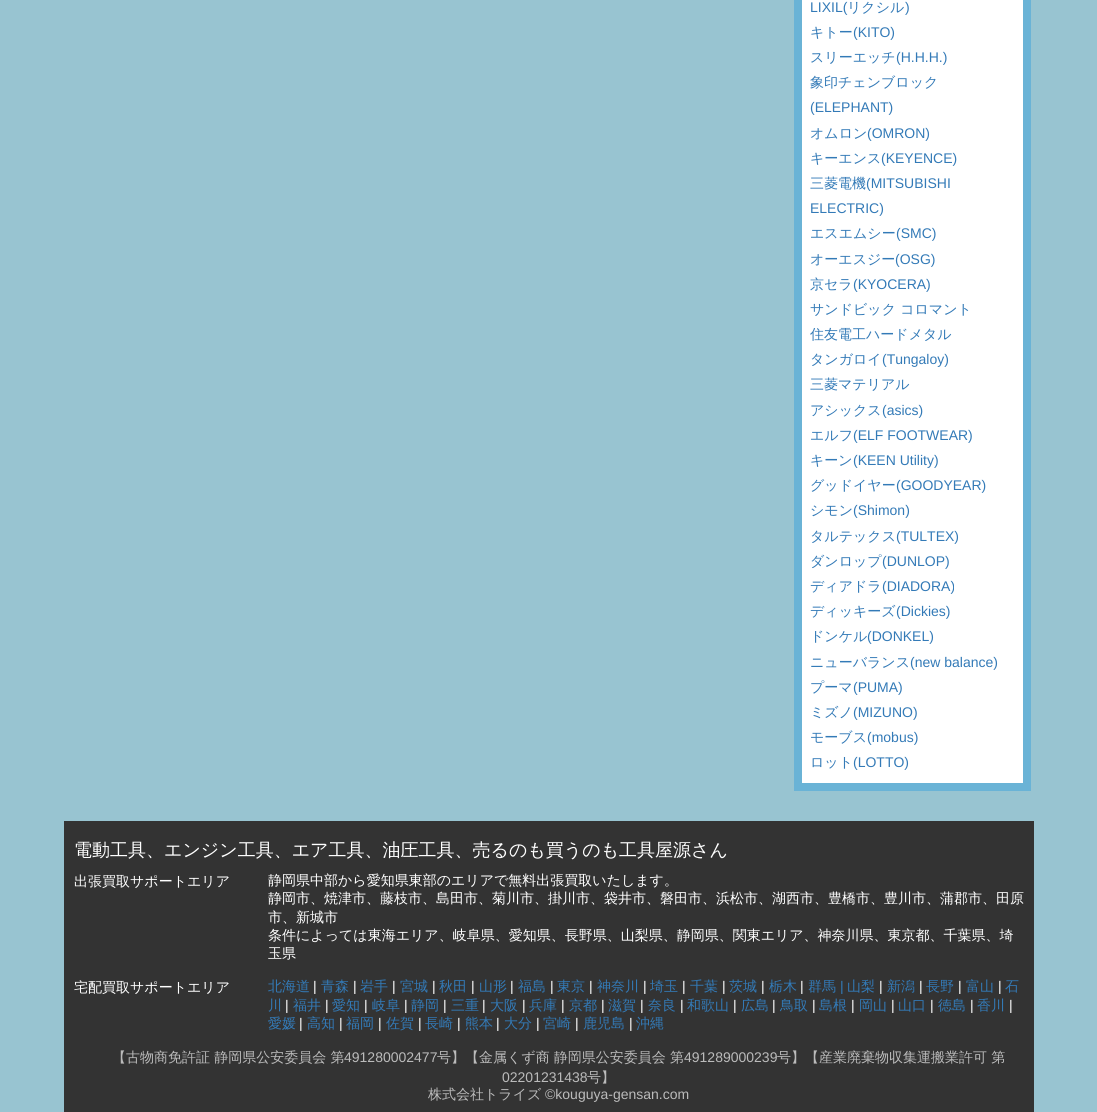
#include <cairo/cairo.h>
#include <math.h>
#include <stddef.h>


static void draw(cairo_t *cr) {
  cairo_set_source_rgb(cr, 152 / 255.0, 196 / 255.0, 209 / 255.0);
  cairo_paint(cr);
  cairo_set_source_rgb(cr, 1, 1, 1);
  cairo_rectangle(cr, 798, -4, 229, 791);
  cairo_fill_preserve(cr);
  cairo_set_source_rgb(cr, 106 / 255.0, 179 / 255.0, 214 / 255.0);
  cairo_set_line_width(cr, 8);
  cairo_stroke(cr);
  cairo_set_source_rgb(cr, 51 / 255.0, 51 / 255.0, 51 / 255.0);
  cairo_rectangle(cr, 64, 821, 970, 291);
  cairo_fill(cr);
  cairo_select_font_face(cr, "Liberation Sans", CAIRO_FONT_SLANT_NORMAL, CAIRO_FONT_WEIGHT_NORMAL);
  cairo_set_font_size(cr, 14);
  cairo_set_source_rgb(cr, 51 / 255.0, 122 / 255.0, 183 / 255.0);
  cairo_move_to(cr, 810, 12);
  cairo_show_text(cr, "LIXIL(");
  cairo_select_font_face(cr, "WenQuanYi Zen Hei Medium", CAIRO_FONT_SLANT_NORMAL, CAIRO_FONT_WEIGHT_NORMAL);
  cairo_move_to(cr, 847, 12);
  cairo_show_text(cr, "リクシル");
  cairo_select_font_face(cr, "Liberation Sans", CAIRO_FONT_SLANT_NORMAL, CAIRO_FONT_WEIGHT_NORMAL);
  cairo_move_to(cr, 905, 12);
  cairo_show_text(cr, ")");
  cairo_select_font_face(cr, "WenQuanYi Zen Hei Medium", CAIRO_FONT_SLANT_NORMAL, CAIRO_FONT_WEIGHT_NORMAL);
  cairo_move_to(cr, 810, 37);
  cairo_show_text(cr, "キトー");
  cairo_select_font_face(cr, "Liberation Sans", CAIRO_FONT_SLANT_NORMAL, CAIRO_FONT_WEIGHT_NORMAL);
  cairo_move_to(cr, 853, 37);
  cairo_show_text(cr, "(KITO)");
  cairo_select_font_face(cr, "WenQuanYi Zen Hei Medium", CAIRO_FONT_SLANT_NORMAL, CAIRO_FONT_WEIGHT_NORMAL);
  cairo_move_to(cr, 810, 62);
  cairo_show_text(cr, "スリーエッチ");
  cairo_select_font_face(cr, "Liberation Sans", CAIRO_FONT_SLANT_NORMAL, CAIRO_FONT_WEIGHT_NORMAL);
  cairo_move_to(cr, 896, 62);
  cairo_show_text(cr, "(H.H.H.)");
  cairo_select_font_face(cr, "WenQuanYi Zen Hei Medium", CAIRO_FONT_SLANT_NORMAL, CAIRO_FONT_WEIGHT_NORMAL);
  cairo_move_to(cr, 810, 87);
  cairo_show_text(cr, "象印チェンブロック");
  cairo_select_font_face(cr, "Liberation Sans", CAIRO_FONT_SLANT_NORMAL, CAIRO_FONT_WEIGHT_NORMAL);
  cairo_move_to(cr, 810, 112);
  cairo_show_text(cr, "(ELEPHANT)");
  cairo_select_font_face(cr, "WenQuanYi Zen Hei Medium", CAIRO_FONT_SLANT_NORMAL, CAIRO_FONT_WEIGHT_NORMAL);
  cairo_move_to(cr, 810, 138);
  cairo_show_text(cr, "オムロン");
  cairo_select_font_face(cr, "Liberation Sans", CAIRO_FONT_SLANT_NORMAL, CAIRO_FONT_WEIGHT_NORMAL);
  cairo_move_to(cr, 867, 138);
  cairo_show_text(cr, "(OMRON)");
  cairo_select_font_face(cr, "WenQuanYi Zen Hei Medium", CAIRO_FONT_SLANT_NORMAL, CAIRO_FONT_WEIGHT_NORMAL);
  cairo_move_to(cr, 810, 163);
  cairo_show_text(cr, "キーエンス");
  cairo_select_font_face(cr, "Liberation Sans", CAIRO_FONT_SLANT_NORMAL, CAIRO_FONT_WEIGHT_NORMAL);
  cairo_move_to(cr, 881, 163);
  cairo_show_text(cr, "(KEYENCE)");
  cairo_select_font_face(cr, "WenQuanYi Zen Hei Medium", CAIRO_FONT_SLANT_NORMAL, CAIRO_FONT_WEIGHT_NORMAL);
  cairo_move_to(cr, 810, 188);
  cairo_show_text(cr, "三菱電機");
  cairo_select_font_face(cr, "Liberation Sans", CAIRO_FONT_SLANT_NORMAL, CAIRO_FONT_WEIGHT_NORMAL);
  cairo_move_to(cr, 866, 188);
  cairo_show_text(cr, "(MITSUBISHI");
  cairo_move_to(cr, 810, 213);
  cairo_show_text(cr, "ELECTRIC)");
  cairo_select_font_face(cr, "WenQuanYi Zen Hei Medium", CAIRO_FONT_SLANT_NORMAL, CAIRO_FONT_WEIGHT_NORMAL);
  cairo_move_to(cr, 810, 238);
  cairo_show_text(cr, "エスエムシー");
  cairo_select_font_face(cr, "Liberation Sans", CAIRO_FONT_SLANT_NORMAL, CAIRO_FONT_WEIGHT_NORMAL);
  cairo_move_to(cr, 896, 238);
  cairo_show_text(cr, "(SMC)");
  cairo_select_font_face(cr, "WenQuanYi Zen Hei Medium", CAIRO_FONT_SLANT_NORMAL, CAIRO_FONT_WEIGHT_NORMAL);
  cairo_move_to(cr, 810, 264);
  cairo_show_text(cr, "オーエスジー");
  cairo_select_font_face(cr, "Liberation Sans", CAIRO_FONT_SLANT_NORMAL, CAIRO_FONT_WEIGHT_NORMAL);
  cairo_move_to(cr, 895, 264);
  cairo_show_text(cr, "(OSG)");
  cairo_select_font_face(cr, "WenQuanYi Zen Hei Medium", CAIRO_FONT_SLANT_NORMAL, CAIRO_FONT_WEIGHT_NORMAL);
  cairo_move_to(cr, 810, 289);
  cairo_show_text(cr, "京セラ");
  cairo_select_font_face(cr, "Liberation Sans", CAIRO_FONT_SLANT_NORMAL, CAIRO_FONT_WEIGHT_NORMAL);
  cairo_move_to(cr, 853, 289);
  cairo_show_text(cr, "(KYOCERA)");
  cairo_select_font_face(cr, "WenQuanYi Zen Hei Medium", CAIRO_FONT_SLANT_NORMAL, CAIRO_FONT_WEIGHT_NORMAL);
  cairo_move_to(cr, 810, 314);
  cairo_show_text(cr, "サンドビック コロマント");
  cairo_move_to(cr, 810, 339);
  cairo_show_text(cr, "住友電工ハードメタル");
  cairo_move_to(cr, 810, 364);
  cairo_show_text(cr, "タンガロイ");
  cairo_select_font_face(cr, "Liberation Sans", CAIRO_FONT_SLANT_NORMAL, CAIRO_FONT_WEIGHT_NORMAL);
  cairo_move_to(cr, 882, 364);
  cairo_show_text(cr, "(Tungaloy)");
  cairo_select_font_face(cr, "WenQuanYi Zen Hei Medium", CAIRO_FONT_SLANT_NORMAL, CAIRO_FONT_WEIGHT_NORMAL);
  cairo_move_to(cr, 810, 389);
  cairo_show_text(cr, "三菱マテリアル");
  cairo_move_to(cr, 810, 415);
  cairo_show_text(cr, "アシックス");
  cairo_select_font_face(cr, "Liberation Sans", CAIRO_FONT_SLANT_NORMAL, CAIRO_FONT_WEIGHT_NORMAL);
  cairo_move_to(cr, 882, 415);
  cairo_show_text(cr, "(asics)");
  cairo_select_font_face(cr, "WenQuanYi Zen Hei Medium", CAIRO_FONT_SLANT_NORMAL, CAIRO_FONT_WEIGHT_NORMAL);
  cairo_move_to(cr, 810, 440);
  cairo_show_text(cr, "エルフ");
  cairo_select_font_face(cr, "Liberation Sans", CAIRO_FONT_SLANT_NORMAL, CAIRO_FONT_WEIGHT_NORMAL);
  cairo_move_to(cr, 853, 440);
  cairo_show_text(cr, "(ELF FOOTWEAR)");
  cairo_select_font_face(cr, "WenQuanYi Zen Hei Medium", CAIRO_FONT_SLANT_NORMAL, CAIRO_FONT_WEIGHT_NORMAL);
  cairo_move_to(cr, 810, 465);
  cairo_show_text(cr, "キーン");
  cairo_select_font_face(cr, "Liberation Sans", CAIRO_FONT_SLANT_NORMAL, CAIRO_FONT_WEIGHT_NORMAL);
  cairo_move_to(cr, 853, 465);
  cairo_show_text(cr, "(KEEN Utility)");
  cairo_select_font_face(cr, "WenQuanYi Zen Hei Medium", CAIRO_FONT_SLANT_NORMAL, CAIRO_FONT_WEIGHT_NORMAL);
  cairo_move_to(cr, 810, 490);
  cairo_show_text(cr, "グッドイヤー");
  cairo_select_font_face(cr, "Liberation Sans", CAIRO_FONT_SLANT_NORMAL, CAIRO_FONT_WEIGHT_NORMAL);
  cairo_move_to(cr, 896, 490);
  cairo_show_text(cr, "(GOODYEAR)");
  cairo_select_font_face(cr, "WenQuanYi Zen Hei Medium", CAIRO_FONT_SLANT_NORMAL, CAIRO_FONT_WEIGHT_NORMAL);
  cairo_move_to(cr, 810, 515);
  cairo_show_text(cr, "シモン");
  cairo_select_font_face(cr, "Liberation Sans", CAIRO_FONT_SLANT_NORMAL, CAIRO_FONT_WEIGHT_NORMAL);
  cairo_move_to(cr, 853, 515);
  cairo_show_text(cr, "(Shimon)");
  cairo_select_font_face(cr, "WenQuanYi Zen Hei Medium", CAIRO_FONT_SLANT_NORMAL, CAIRO_FONT_WEIGHT_NORMAL);
  cairo_move_to(cr, 810, 541);
  cairo_show_text(cr, "タルテックス");
  cairo_select_font_face(cr, "Liberation Sans", CAIRO_FONT_SLANT_NORMAL, CAIRO_FONT_WEIGHT_NORMAL);
  cairo_move_to(cr, 896, 541);
  cairo_show_text(cr, "(TULTEX)");
  cairo_select_font_face(cr, "WenQuanYi Zen Hei Medium", CAIRO_FONT_SLANT_NORMAL, CAIRO_FONT_WEIGHT_NORMAL);
  cairo_move_to(cr, 810, 566);
  cairo_show_text(cr, "ダンロップ");
  cairo_select_font_face(cr, "Liberation Sans", CAIRO_FONT_SLANT_NORMAL, CAIRO_FONT_WEIGHT_NORMAL);
  cairo_move_to(cr, 882, 566);
  cairo_show_text(cr, "(DUNLOP)");
  cairo_select_font_face(cr, "WenQuanYi Zen Hei Medium", CAIRO_FONT_SLANT_NORMAL, CAIRO_FONT_WEIGHT_NORMAL);
  cairo_move_to(cr, 810, 591);
  cairo_show_text(cr, "ディアドラ");
  cairo_select_font_face(cr, "Liberation Sans", CAIRO_FONT_SLANT_NORMAL, CAIRO_FONT_WEIGHT_NORMAL);
  cairo_move_to(cr, 882, 591);
  cairo_show_text(cr, "(DIADORA)");
  cairo_select_font_face(cr, "WenQuanYi Zen Hei Medium", CAIRO_FONT_SLANT_NORMAL, CAIRO_FONT_WEIGHT_NORMAL);
  cairo_move_to(cr, 810, 616);
  cairo_show_text(cr, "ディッキーズ");
  cairo_select_font_face(cr, "Liberation Sans", CAIRO_FONT_SLANT_NORMAL, CAIRO_FONT_WEIGHT_NORMAL);
  cairo_move_to(cr, 896, 616);
  cairo_show_text(cr, "(Dickies)");
  cairo_select_font_face(cr, "WenQuanYi Zen Hei Medium", CAIRO_FONT_SLANT_NORMAL, CAIRO_FONT_WEIGHT_NORMAL);
  cairo_move_to(cr, 810, 641);
  cairo_show_text(cr, "ドンケル");
  cairo_select_font_face(cr, "Liberation Sans", CAIRO_FONT_SLANT_NORMAL, CAIRO_FONT_WEIGHT_NORMAL);
  cairo_move_to(cr, 867, 641);
  cairo_show_text(cr, "(DONKEL)");
  cairo_select_font_face(cr, "WenQuanYi Zen Hei Medium", CAIRO_FONT_SLANT_NORMAL, CAIRO_FONT_WEIGHT_NORMAL);
  cairo_move_to(cr, 810, 667);
  cairo_show_text(cr, "ニューバランス");
  cairo_select_font_face(cr, "Liberation Sans", CAIRO_FONT_SLANT_NORMAL, CAIRO_FONT_WEIGHT_NORMAL);
  cairo_move_to(cr, 910, 667);
  cairo_show_text(cr, "(new balance)");
  cairo_select_font_face(cr, "WenQuanYi Zen Hei Medium", CAIRO_FONT_SLANT_NORMAL, CAIRO_FONT_WEIGHT_NORMAL);
  cairo_move_to(cr, 810, 692);
  cairo_show_text(cr, "プーマ");
  cairo_select_font_face(cr, "Liberation Sans", CAIRO_FONT_SLANT_NORMAL, CAIRO_FONT_WEIGHT_NORMAL);
  cairo_move_to(cr, 853, 692);
  cairo_show_text(cr, "(PUMA)");
  cairo_select_font_face(cr, "WenQuanYi Zen Hei Medium", CAIRO_FONT_SLANT_NORMAL, CAIRO_FONT_WEIGHT_NORMAL);
  cairo_move_to(cr, 810, 717);
  cairo_show_text(cr, "ミズノ");
  cairo_select_font_face(cr, "Liberation Sans", CAIRO_FONT_SLANT_NORMAL, CAIRO_FONT_WEIGHT_NORMAL);
  cairo_move_to(cr, 853, 717);
  cairo_show_text(cr, "(MIZUNO)");
  cairo_select_font_face(cr, "WenQuanYi Zen Hei Medium", CAIRO_FONT_SLANT_NORMAL, CAIRO_FONT_WEIGHT_NORMAL);
  cairo_move_to(cr, 810, 742);
  cairo_show_text(cr, "モーブス");
  cairo_select_font_face(cr, "Liberation Sans", CAIRO_FONT_SLANT_NORMAL, CAIRO_FONT_WEIGHT_NORMAL);
  cairo_move_to(cr, 867, 742);
  cairo_show_text(cr, "(mobus)");
  cairo_select_font_face(cr, "WenQuanYi Zen Hei Medium", CAIRO_FONT_SLANT_NORMAL, CAIRO_FONT_WEIGHT_NORMAL);
  cairo_move_to(cr, 810, 767);
  cairo_show_text(cr, "ロット");
  cairo_select_font_face(cr, "Liberation Sans", CAIRO_FONT_SLANT_NORMAL, CAIRO_FONT_WEIGHT_NORMAL);
  cairo_move_to(cr, 853, 767);
  cairo_show_text(cr, "(LOTTO)");
  cairo_select_font_face(cr, "WenQuanYi Zen Hei Medium", CAIRO_FONT_SLANT_NORMAL, CAIRO_FONT_WEIGHT_NORMAL);
  cairo_set_font_size(cr, 18);
  cairo_set_source_rgb(cr, 1, 1, 1);
  cairo_move_to(cr, 74, 856);
  cairo_show_text(cr, "電動工具、エンジン工具、エア工具、油圧工具、売るのも買うのも工具屋源さん");
  cairo_set_font_size(cr, 14);
  cairo_move_to(cr, 74, 886);
  cairo_show_text(cr, "出張買取サポートエリア");
  cairo_move_to(cr, 268, 885);
  cairo_show_text(cr, "静岡県中部から愛知県東部のエリアで無料出張買取いたします。");
  cairo_move_to(cr, 268, 903);
  cairo_show_text(cr, "静岡市、焼津市、藤枝市、島田市、菊川市、掛川市、袋井市、磐田市、浜松市、湖西市、豊橋市、豊川市、蒲郡市、田原");
  cairo_move_to(cr, 268, 922);
  cairo_show_text(cr, "市、新城市");
  cairo_move_to(cr, 268, 940);
  cairo_show_text(cr, "条件によっては東海エリア、岐阜県、愛知県、長野県、山梨県、静岡県、関東エリア、神奈川県、東京都、千葉県、埼");
  cairo_move_to(cr, 268, 958);
  cairo_show_text(cr, "玉県");
  cairo_move_to(cr, 74, 992);
  cairo_show_text(cr, "宅配買取サポートエリア");
  cairo_set_source_rgb(cr, 51 / 255.0, 122 / 255.0, 183 / 255.0);
  cairo_move_to(cr, 268, 991);
  cairo_show_text(cr, "北海道");
  cairo_select_font_face(cr, "Liberation Sans", CAIRO_FONT_SLANT_NORMAL, CAIRO_FONT_WEIGHT_NORMAL);
  cairo_set_source_rgb(cr, 1, 1, 1);
  cairo_move_to(cr, 313, 991);
  cairo_show_text(cr, "|");
  cairo_select_font_face(cr, "WenQuanYi Zen Hei Medium", CAIRO_FONT_SLANT_NORMAL, CAIRO_FONT_WEIGHT_NORMAL);
  cairo_set_source_rgb(cr, 51 / 255.0, 122 / 255.0, 183 / 255.0);
  cairo_move_to(cr, 321, 991);
  cairo_show_text(cr, "青森");
  cairo_select_font_face(cr, "Liberation Sans", CAIRO_FONT_SLANT_NORMAL, CAIRO_FONT_WEIGHT_NORMAL);
  cairo_set_source_rgb(cr, 1, 1, 1);
  cairo_move_to(cr, 353, 991);
  cairo_show_text(cr, "|");
  cairo_select_font_face(cr, "WenQuanYi Zen Hei Medium", CAIRO_FONT_SLANT_NORMAL, CAIRO_FONT_WEIGHT_NORMAL);
  cairo_set_source_rgb(cr, 51 / 255.0, 122 / 255.0, 183 / 255.0);
  cairo_move_to(cr, 360, 991);
  cairo_show_text(cr, "岩手");
  cairo_select_font_face(cr, "Liberation Sans", CAIRO_FONT_SLANT_NORMAL, CAIRO_FONT_WEIGHT_NORMAL);
  cairo_set_source_rgb(cr, 1, 1, 1);
  cairo_move_to(cr, 392, 991);
  cairo_show_text(cr, "|");
  cairo_select_font_face(cr, "WenQuanYi Zen Hei Medium", CAIRO_FONT_SLANT_NORMAL, CAIRO_FONT_WEIGHT_NORMAL);
  cairo_set_source_rgb(cr, 51 / 255.0, 122 / 255.0, 183 / 255.0);
  cairo_move_to(cr, 400, 991);
  cairo_show_text(cr, "宮城");
  cairo_select_font_face(cr, "Liberation Sans", CAIRO_FONT_SLANT_NORMAL, CAIRO_FONT_WEIGHT_NORMAL);
  cairo_set_source_rgb(cr, 1, 1, 1);
  cairo_move_to(cr, 432, 991);
  cairo_show_text(cr, "|");
  cairo_select_font_face(cr, "WenQuanYi Zen Hei Medium", CAIRO_FONT_SLANT_NORMAL, CAIRO_FONT_WEIGHT_NORMAL);
  cairo_set_source_rgb(cr, 51 / 255.0, 122 / 255.0, 183 / 255.0);
  cairo_move_to(cr, 439, 991);
  cairo_show_text(cr, "秋田");
  cairo_select_font_face(cr, "Liberation Sans", CAIRO_FONT_SLANT_NORMAL, CAIRO_FONT_WEIGHT_NORMAL);
  cairo_set_source_rgb(cr, 1, 1, 1);
  cairo_move_to(cr, 471, 991);
  cairo_show_text(cr, "|");
  cairo_select_font_face(cr, "WenQuanYi Zen Hei Medium", CAIRO_FONT_SLANT_NORMAL, CAIRO_FONT_WEIGHT_NORMAL);
  cairo_set_source_rgb(cr, 51 / 255.0, 122 / 255.0, 183 / 255.0);
  cairo_move_to(cr, 479, 991);
  cairo_show_text(cr, "山形");
  cairo_select_font_face(cr, "Liberation Sans", CAIRO_FONT_SLANT_NORMAL, CAIRO_FONT_WEIGHT_NORMAL);
  cairo_set_source_rgb(cr, 1, 1, 1);
  cairo_move_to(cr, 510, 991);
  cairo_show_text(cr, "|");
  cairo_select_font_face(cr, "WenQuanYi Zen Hei Medium", CAIRO_FONT_SLANT_NORMAL, CAIRO_FONT_WEIGHT_NORMAL);
  cairo_set_source_rgb(cr, 51 / 255.0, 122 / 255.0, 183 / 255.0);
  cairo_move_to(cr, 518, 991);
  cairo_show_text(cr, "福島");
  cairo_select_font_face(cr, "Liberation Sans", CAIRO_FONT_SLANT_NORMAL, CAIRO_FONT_WEIGHT_NORMAL);
  cairo_set_source_rgb(cr, 1, 1, 1);
  cairo_move_to(cr, 550, 991);
  cairo_show_text(cr, "|");
  cairo_select_font_face(cr, "WenQuanYi Zen Hei Medium", CAIRO_FONT_SLANT_NORMAL, CAIRO_FONT_WEIGHT_NORMAL);
  cairo_set_source_rgb(cr, 51 / 255.0, 122 / 255.0, 183 / 255.0);
  cairo_move_to(cr, 557, 991);
  cairo_show_text(cr, "東京");
  cairo_select_font_face(cr, "Liberation Sans", CAIRO_FONT_SLANT_NORMAL, CAIRO_FONT_WEIGHT_NORMAL);
  cairo_set_source_rgb(cr, 1, 1, 1);
  cairo_move_to(cr, 589, 991);
  cairo_show_text(cr, "|");
  cairo_select_font_face(cr, "WenQuanYi Zen Hei Medium", CAIRO_FONT_SLANT_NORMAL, CAIRO_FONT_WEIGHT_NORMAL);
  cairo_set_source_rgb(cr, 51 / 255.0, 122 / 255.0, 183 / 255.0);
  cairo_move_to(cr, 597, 991);
  cairo_show_text(cr, "神奈川");
  cairo_select_font_face(cr, "Liberation Sans", CAIRO_FONT_SLANT_NORMAL, CAIRO_FONT_WEIGHT_NORMAL);
  cairo_set_source_rgb(cr, 1, 1, 1);
  cairo_move_to(cr, 643, 991);
  cairo_show_text(cr, "|");
  cairo_select_font_face(cr, "WenQuanYi Zen Hei Medium", CAIRO_FONT_SLANT_NORMAL, CAIRO_FONT_WEIGHT_NORMAL);
  cairo_set_source_rgb(cr, 51 / 255.0, 122 / 255.0, 183 / 255.0);
  cairo_move_to(cr, 650, 991);
  cairo_show_text(cr, "埼玉");
  cairo_select_font_face(cr, "Liberation Sans", CAIRO_FONT_SLANT_NORMAL, CAIRO_FONT_WEIGHT_NORMAL);
  cairo_set_source_rgb(cr, 1, 1, 1);
  cairo_move_to(cr, 682, 991);
  cairo_show_text(cr, "|");
  cairo_select_font_face(cr, "WenQuanYi Zen Hei Medium", CAIRO_FONT_SLANT_NORMAL, CAIRO_FONT_WEIGHT_NORMAL);
  cairo_set_source_rgb(cr, 51 / 255.0, 122 / 255.0, 183 / 255.0);
  cairo_move_to(cr, 690, 991);
  cairo_show_text(cr, "千葉");
  cairo_select_font_face(cr, "Liberation Sans", CAIRO_FONT_SLANT_NORMAL, CAIRO_FONT_WEIGHT_NORMAL);
  cairo_set_source_rgb(cr, 1, 1, 1);
  cairo_move_to(cr, 722, 991);
  cairo_show_text(cr, "|");
  cairo_select_font_face(cr, "WenQuanYi Zen Hei Medium", CAIRO_FONT_SLANT_NORMAL, CAIRO_FONT_WEIGHT_NORMAL);
  cairo_set_source_rgb(cr, 51 / 255.0, 122 / 255.0, 183 / 255.0);
  cairo_move_to(cr, 729, 991);
  cairo_show_text(cr, "茨城");
  cairo_select_font_face(cr, "Liberation Sans", CAIRO_FONT_SLANT_NORMAL, CAIRO_FONT_WEIGHT_NORMAL);
  cairo_set_source_rgb(cr, 1, 1, 1);
  cairo_move_to(cr, 761, 991);
  cairo_show_text(cr, "|");
  cairo_select_font_face(cr, "WenQuanYi Zen Hei Medium", CAIRO_FONT_SLANT_NORMAL, CAIRO_FONT_WEIGHT_NORMAL);
  cairo_set_source_rgb(cr, 51 / 255.0, 122 / 255.0, 183 / 255.0);
  cairo_move_to(cr, 769, 991);
  cairo_show_text(cr, "栃木");
  cairo_select_font_face(cr, "Liberation Sans", CAIRO_FONT_SLANT_NORMAL, CAIRO_FONT_WEIGHT_NORMAL);
  cairo_set_source_rgb(cr, 1, 1, 1);
  cairo_move_to(cr, 800, 991);
  cairo_show_text(cr, "|");
  cairo_select_font_face(cr, "WenQuanYi Zen Hei Medium", CAIRO_FONT_SLANT_NORMAL, CAIRO_FONT_WEIGHT_NORMAL);
  cairo_set_source_rgb(cr, 51 / 255.0, 122 / 255.0, 183 / 255.0);
  cairo_move_to(cr, 808, 991);
  cairo_show_text(cr, "群馬");
  cairo_select_font_face(cr, "Liberation Sans", CAIRO_FONT_SLANT_NORMAL, CAIRO_FONT_WEIGHT_NORMAL);
  cairo_move_to(cr, 840, 991);
  cairo_show_text(cr, "|");
  cairo_select_font_face(cr, "WenQuanYi Zen Hei Medium", CAIRO_FONT_SLANT_NORMAL, CAIRO_FONT_WEIGHT_NORMAL);
  cairo_move_to(cr, 847, 991);
  cairo_show_text(cr, "山梨");
  cairo_select_font_face(cr, "Liberation Sans", CAIRO_FONT_SLANT_NORMAL, CAIRO_FONT_WEIGHT_NORMAL);
  cairo_set_source_rgb(cr, 1, 1, 1);
  cairo_move_to(cr, 879, 991);
  cairo_show_text(cr, "|");
  cairo_select_font_face(cr, "WenQuanYi Zen Hei Medium", CAIRO_FONT_SLANT_NORMAL, CAIRO_FONT_WEIGHT_NORMAL);
  cairo_set_source_rgb(cr, 51 / 255.0, 122 / 255.0, 183 / 255.0);
  cairo_move_to(cr, 887, 991);
  cairo_show_text(cr, "新潟");
  cairo_select_font_face(cr, "Liberation Sans", CAIRO_FONT_SLANT_NORMAL, CAIRO_FONT_WEIGHT_NORMAL);
  cairo_set_source_rgb(cr, 1, 1, 1);
  cairo_move_to(cr, 919, 991);
  cairo_show_text(cr, "|");
  cairo_select_font_face(cr, "WenQuanYi Zen Hei Medium", CAIRO_FONT_SLANT_NORMAL, CAIRO_FONT_WEIGHT_NORMAL);
  cairo_set_source_rgb(cr, 51 / 255.0, 122 / 255.0, 183 / 255.0);
  cairo_move_to(cr, 926, 991);
  cairo_show_text(cr, "長野");
  cairo_select_font_face(cr, "Liberation Sans", CAIRO_FONT_SLANT_NORMAL, CAIRO_FONT_WEIGHT_NORMAL);
  cairo_set_source_rgb(cr, 1, 1, 1);
  cairo_move_to(cr, 958, 991);
  cairo_show_text(cr, "|");
  cairo_select_font_face(cr, "WenQuanYi Zen Hei Medium", CAIRO_FONT_SLANT_NORMAL, CAIRO_FONT_WEIGHT_NORMAL);
  cairo_set_source_rgb(cr, 51 / 255.0, 122 / 255.0, 183 / 255.0);
  cairo_move_to(cr, 966, 991);
  cairo_show_text(cr, "富山");
  cairo_select_font_face(cr, "Liberation Sans", CAIRO_FONT_SLANT_NORMAL, CAIRO_FONT_WEIGHT_NORMAL);
  cairo_set_source_rgb(cr, 1, 1, 1);
  cairo_move_to(cr, 998, 991);
  cairo_show_text(cr, "|");
  cairo_select_font_face(cr, "WenQuanYi Zen Hei Medium", CAIRO_FONT_SLANT_NORMAL, CAIRO_FONT_WEIGHT_NORMAL);
  cairo_set_source_rgb(cr, 51 / 255.0, 122 / 255.0, 183 / 255.0);
  cairo_move_to(cr, 1005, 991);
  cairo_show_text(cr, "石");
  cairo_move_to(cr, 268, 1010);
  cairo_show_text(cr, "川");
  cairo_select_font_face(cr, "Liberation Sans", CAIRO_FONT_SLANT_NORMAL, CAIRO_FONT_WEIGHT_NORMAL);
  cairo_set_source_rgb(cr, 1, 1, 1);
  cairo_move_to(cr, 285, 1010);
  cairo_show_text(cr, "|");
  cairo_select_font_face(cr, "WenQuanYi Zen Hei Medium", CAIRO_FONT_SLANT_NORMAL, CAIRO_FONT_WEIGHT_NORMAL);
  cairo_set_source_rgb(cr, 51 / 255.0, 122 / 255.0, 183 / 255.0);
  cairo_move_to(cr, 293, 1010);
  cairo_show_text(cr, "福井");
  cairo_select_font_face(cr, "Liberation Sans", CAIRO_FONT_SLANT_NORMAL, CAIRO_FONT_WEIGHT_NORMAL);
  cairo_set_source_rgb(cr, 1, 1, 1);
  cairo_move_to(cr, 325, 1010);
  cairo_show_text(cr, "|");
  cairo_select_font_face(cr, "WenQuanYi Zen Hei Medium", CAIRO_FONT_SLANT_NORMAL, CAIRO_FONT_WEIGHT_NORMAL);
  cairo_set_source_rgb(cr, 51 / 255.0, 122 / 255.0, 183 / 255.0);
  cairo_move_to(cr, 332, 1010);
  cairo_show_text(cr, "愛知");
  cairo_select_font_face(cr, "Liberation Sans", CAIRO_FONT_SLANT_NORMAL, CAIRO_FONT_WEIGHT_NORMAL);
  cairo_set_source_rgb(cr, 1, 1, 1);
  cairo_move_to(cr, 364, 1010);
  cairo_show_text(cr, "|");
  cairo_select_font_face(cr, "WenQuanYi Zen Hei Medium", CAIRO_FONT_SLANT_NORMAL, CAIRO_FONT_WEIGHT_NORMAL);
  cairo_set_source_rgb(cr, 51 / 255.0, 122 / 255.0, 183 / 255.0);
  cairo_move_to(cr, 372, 1010);
  cairo_show_text(cr, "岐阜");
  cairo_select_font_face(cr, "Liberation Sans", CAIRO_FONT_SLANT_NORMAL, CAIRO_FONT_WEIGHT_NORMAL);
  cairo_set_source_rgb(cr, 1, 1, 1);
  cairo_move_to(cr, 404, 1010);
  cairo_show_text(cr, "|");
  cairo_select_font_face(cr, "WenQuanYi Zen Hei Medium", CAIRO_FONT_SLANT_NORMAL, CAIRO_FONT_WEIGHT_NORMAL);
  cairo_set_source_rgb(cr, 51 / 255.0, 122 / 255.0, 183 / 255.0);
  cairo_move_to(cr, 411, 1010);
  cairo_show_text(cr, "静岡");
  cairo_select_font_face(cr, "Liberation Sans", CAIRO_FONT_SLANT_NORMAL, CAIRO_FONT_WEIGHT_NORMAL);
  cairo_set_source_rgb(cr, 1, 1, 1);
  cairo_move_to(cr, 443, 1010);
  cairo_show_text(cr, "|");
  cairo_select_font_face(cr, "WenQuanYi Zen Hei Medium", CAIRO_FONT_SLANT_NORMAL, CAIRO_FONT_WEIGHT_NORMAL);
  cairo_set_source_rgb(cr, 51 / 255.0, 122 / 255.0, 183 / 255.0);
  cairo_move_to(cr, 451, 1010);
  cairo_show_text(cr, "三重");
  cairo_select_font_face(cr, "Liberation Sans", CAIRO_FONT_SLANT_NORMAL, CAIRO_FONT_WEIGHT_NORMAL);
  cairo_set_source_rgb(cr, 1, 1, 1);
  cairo_move_to(cr, 482, 1010);
  cairo_show_text(cr, "|");
  cairo_select_font_face(cr, "WenQuanYi Zen Hei Medium", CAIRO_FONT_SLANT_NORMAL, CAIRO_FONT_WEIGHT_NORMAL);
  cairo_set_source_rgb(cr, 51 / 255.0, 122 / 255.0, 183 / 255.0);
  cairo_move_to(cr, 490, 1010);
  cairo_show_text(cr, "大阪");
  cairo_select_font_face(cr, "Liberation Sans", CAIRO_FONT_SLANT_NORMAL, CAIRO_FONT_WEIGHT_NORMAL);
  cairo_set_source_rgb(cr, 1, 1, 1);
  cairo_move_to(cr, 522, 1010);
  cairo_show_text(cr, "|");
  cairo_select_font_face(cr, "WenQuanYi Zen Hei Medium", CAIRO_FONT_SLANT_NORMAL, CAIRO_FONT_WEIGHT_NORMAL);
  cairo_set_source_rgb(cr, 51 / 255.0, 122 / 255.0, 183 / 255.0);
  cairo_move_to(cr, 529, 1010);
  cairo_show_text(cr, "兵庫");
  cairo_select_font_face(cr, "Liberation Sans", CAIRO_FONT_SLANT_NORMAL, CAIRO_FONT_WEIGHT_NORMAL);
  cairo_set_source_rgb(cr, 1, 1, 1);
  cairo_move_to(cr, 561, 1010);
  cairo_show_text(cr, "|");
  cairo_select_font_face(cr, "WenQuanYi Zen Hei Medium", CAIRO_FONT_SLANT_NORMAL, CAIRO_FONT_WEIGHT_NORMAL);
  cairo_set_source_rgb(cr, 51 / 255.0, 122 / 255.0, 183 / 255.0);
  cairo_move_to(cr, 569, 1010);
  cairo_show_text(cr, "京都");
  cairo_select_font_face(cr, "Liberation Sans", CAIRO_FONT_SLANT_NORMAL, CAIRO_FONT_WEIGHT_NORMAL);
  cairo_set_source_rgb(cr, 1, 1, 1);
  cairo_move_to(cr, 601, 1010);
  cairo_show_text(cr, "|");
  cairo_select_font_face(cr, "WenQuanYi Zen Hei Medium", CAIRO_FONT_SLANT_NORMAL, CAIRO_FONT_WEIGHT_NORMAL);
  cairo_set_source_rgb(cr, 51 / 255.0, 122 / 255.0, 183 / 255.0);
  cairo_move_to(cr, 608, 1010);
  cairo_show_text(cr, "滋賀");
  cairo_select_font_face(cr, "Liberation Sans", CAIRO_FONT_SLANT_NORMAL, CAIRO_FONT_WEIGHT_NORMAL);
  cairo_set_source_rgb(cr, 1, 1, 1);
  cairo_move_to(cr, 640, 1010);
  cairo_show_text(cr, "|");
  cairo_select_font_face(cr, "WenQuanYi Zen Hei Medium", CAIRO_FONT_SLANT_NORMAL, CAIRO_FONT_WEIGHT_NORMAL);
  cairo_set_source_rgb(cr, 51 / 255.0, 122 / 255.0, 183 / 255.0);
  cairo_move_to(cr, 648, 1010);
  cairo_show_text(cr, "奈良");
  cairo_select_font_face(cr, "Liberation Sans", CAIRO_FONT_SLANT_NORMAL, CAIRO_FONT_WEIGHT_NORMAL);
  cairo_set_source_rgb(cr, 1, 1, 1);
  cairo_move_to(cr, 680, 1010);
  cairo_show_text(cr, "|");
  cairo_select_font_face(cr, "WenQuanYi Zen Hei Medium", CAIRO_FONT_SLANT_NORMAL, CAIRO_FONT_WEIGHT_NORMAL);
  cairo_set_source_rgb(cr, 51 / 255.0, 122 / 255.0, 183 / 255.0);
  cairo_move_to(cr, 687, 1010);
  cairo_show_text(cr, "和歌山");
  cairo_select_font_face(cr, "Liberation Sans", CAIRO_FONT_SLANT_NORMAL, CAIRO_FONT_WEIGHT_NORMAL);
  cairo_set_source_rgb(cr, 1, 1, 1);
  cairo_move_to(cr, 733, 1010);
  cairo_show_text(cr, "|");
  cairo_select_font_face(cr, "WenQuanYi Zen Hei Medium", CAIRO_FONT_SLANT_NORMAL, CAIRO_FONT_WEIGHT_NORMAL);
  cairo_set_source_rgb(cr, 51 / 255.0, 122 / 255.0, 183 / 255.0);
  cairo_move_to(cr, 741, 1010);
  cairo_show_text(cr, "広島");
  cairo_select_font_face(cr, "Liberation Sans", CAIRO_FONT_SLANT_NORMAL, CAIRO_FONT_WEIGHT_NORMAL);
  cairo_set_source_rgb(cr, 1, 1, 1);
  cairo_move_to(cr, 772, 1010);
  cairo_show_text(cr, "|");
  cairo_select_font_face(cr, "WenQuanYi Zen Hei Medium", CAIRO_FONT_SLANT_NORMAL, CAIRO_FONT_WEIGHT_NORMAL);
  cairo_set_source_rgb(cr, 51 / 255.0, 122 / 255.0, 183 / 255.0);
  cairo_move_to(cr, 780, 1010);
  cairo_show_text(cr, "鳥取");
  cairo_select_font_face(cr, "Liberation Sans", CAIRO_FONT_SLANT_NORMAL, CAIRO_FONT_WEIGHT_NORMAL);
  cairo_set_source_rgb(cr, 1, 1, 1);
  cairo_move_to(cr, 812, 1010);
  cairo_show_text(cr, "|");
  cairo_select_font_face(cr, "WenQuanYi Zen Hei Medium", CAIRO_FONT_SLANT_NORMAL, CAIRO_FONT_WEIGHT_NORMAL);
  cairo_set_source_rgb(cr, 51 / 255.0, 122 / 255.0, 183 / 255.0);
  cairo_move_to(cr, 819, 1010);
  cairo_show_text(cr, "島根");
  cairo_select_font_face(cr, "Liberation Sans", CAIRO_FONT_SLANT_NORMAL, CAIRO_FONT_WEIGHT_NORMAL);
  cairo_set_source_rgb(cr, 1, 1, 1);
  cairo_move_to(cr, 851, 1010);
  cairo_show_text(cr, "|");
  cairo_select_font_face(cr, "WenQuanYi Zen Hei Medium", CAIRO_FONT_SLANT_NORMAL, CAIRO_FONT_WEIGHT_NORMAL);
  cairo_set_source_rgb(cr, 51 / 255.0, 122 / 255.0, 183 / 255.0);
  cairo_move_to(cr, 859, 1010);
  cairo_show_text(cr, "岡山");
  cairo_select_font_face(cr, "Liberation Sans", CAIRO_FONT_SLANT_NORMAL, CAIRO_FONT_WEIGHT_NORMAL);
  cairo_set_source_rgb(cr, 1, 1, 1);
  cairo_move_to(cr, 891, 1010);
  cairo_show_text(cr, "|");
  cairo_select_font_face(cr, "WenQuanYi Zen Hei Medium", CAIRO_FONT_SLANT_NORMAL, CAIRO_FONT_WEIGHT_NORMAL);
  cairo_set_source_rgb(cr, 51 / 255.0, 122 / 255.0, 183 / 255.0);
  cairo_move_to(cr, 898, 1010);
  cairo_show_text(cr, "山口");
  cairo_select_font_face(cr, "Liberation Sans", CAIRO_FONT_SLANT_NORMAL, CAIRO_FONT_WEIGHT_NORMAL);
  cairo_set_source_rgb(cr, 1, 1, 1);
  cairo_move_to(cr, 930, 1010);
  cairo_show_text(cr, "|");
  cairo_select_font_face(cr, "WenQuanYi Zen Hei Medium", CAIRO_FONT_SLANT_NORMAL, CAIRO_FONT_WEIGHT_NORMAL);
  cairo_set_source_rgb(cr, 51 / 255.0, 122 / 255.0, 183 / 255.0);
  cairo_move_to(cr, 938, 1010);
  cairo_show_text(cr, "徳島");
  cairo_select_font_face(cr, "Liberation Sans", CAIRO_FONT_SLANT_NORMAL, CAIRO_FONT_WEIGHT_NORMAL);
  cairo_set_source_rgb(cr, 1, 1, 1);
  cairo_move_to(cr, 970, 1010);
  cairo_show_text(cr, "|");
  cairo_select_font_face(cr, "WenQuanYi Zen Hei Medium", CAIRO_FONT_SLANT_NORMAL, CAIRO_FONT_WEIGHT_NORMAL);
  cairo_set_source_rgb(cr, 51 / 255.0, 122 / 255.0, 183 / 255.0);
  cairo_move_to(cr, 977, 1010);
  cairo_show_text(cr, "香川");
  cairo_select_font_face(cr, "Liberation Sans", CAIRO_FONT_SLANT_NORMAL, CAIRO_FONT_WEIGHT_NORMAL);
  cairo_set_source_rgb(cr, 1, 1, 1);
  cairo_move_to(cr, 1009, 1010);
  cairo_show_text(cr, "|");
  cairo_select_font_face(cr, "WenQuanYi Zen Hei Medium", CAIRO_FONT_SLANT_NORMAL, CAIRO_FONT_WEIGHT_NORMAL);
  cairo_set_source_rgb(cr, 51 / 255.0, 122 / 255.0, 183 / 255.0);
  cairo_move_to(cr, 268, 1028);
  cairo_show_text(cr, "愛媛");
  cairo_select_font_face(cr, "Liberation Sans", CAIRO_FONT_SLANT_NORMAL, CAIRO_FONT_WEIGHT_NORMAL);
  cairo_set_source_rgb(cr, 1, 1, 1);
  cairo_move_to(cr, 299, 1028);
  cairo_show_text(cr, "|");
  cairo_select_font_face(cr, "WenQuanYi Zen Hei Medium", CAIRO_FONT_SLANT_NORMAL, CAIRO_FONT_WEIGHT_NORMAL);
  cairo_set_source_rgb(cr, 51 / 255.0, 122 / 255.0, 183 / 255.0);
  cairo_move_to(cr, 307, 1028);
  cairo_show_text(cr, "高知");
  cairo_select_font_face(cr, "Liberation Sans", CAIRO_FONT_SLANT_NORMAL, CAIRO_FONT_WEIGHT_NORMAL);
  cairo_set_source_rgb(cr, 1, 1, 1);
  cairo_move_to(cr, 339, 1028);
  cairo_show_text(cr, "|");
  cairo_select_font_face(cr, "WenQuanYi Zen Hei Medium", CAIRO_FONT_SLANT_NORMAL, CAIRO_FONT_WEIGHT_NORMAL);
  cairo_set_source_rgb(cr, 51 / 255.0, 122 / 255.0, 183 / 255.0);
  cairo_move_to(cr, 346, 1028);
  cairo_show_text(cr, "福岡");
  cairo_select_font_face(cr, "Liberation Sans", CAIRO_FONT_SLANT_NORMAL, CAIRO_FONT_WEIGHT_NORMAL);
  cairo_set_source_rgb(cr, 1, 1, 1);
  cairo_move_to(cr, 378, 1028);
  cairo_show_text(cr, "|");
  cairo_select_font_face(cr, "WenQuanYi Zen Hei Medium", CAIRO_FONT_SLANT_NORMAL, CAIRO_FONT_WEIGHT_NORMAL);
  cairo_set_source_rgb(cr, 51 / 255.0, 122 / 255.0, 183 / 255.0);
  cairo_move_to(cr, 386, 1028);
  cairo_show_text(cr, "佐賀");
  cairo_select_font_face(cr, "Liberation Sans", CAIRO_FONT_SLANT_NORMAL, CAIRO_FONT_WEIGHT_NORMAL);
  cairo_set_source_rgb(cr, 1, 1, 1);
  cairo_move_to(cr, 418, 1028);
  cairo_show_text(cr, "|");
  cairo_select_font_face(cr, "WenQuanYi Zen Hei Medium", CAIRO_FONT_SLANT_NORMAL, CAIRO_FONT_WEIGHT_NORMAL);
  cairo_set_source_rgb(cr, 51 / 255.0, 122 / 255.0, 183 / 255.0);
  cairo_move_to(cr, 425, 1028);
  cairo_show_text(cr, "長崎");
  cairo_select_font_face(cr, "Liberation Sans", CAIRO_FONT_SLANT_NORMAL, CAIRO_FONT_WEIGHT_NORMAL);
  cairo_set_source_rgb(cr, 1, 1, 1);
  cairo_move_to(cr, 457, 1028);
  cairo_show_text(cr, "|");
  cairo_select_font_face(cr, "WenQuanYi Zen Hei Medium", CAIRO_FONT_SLANT_NORMAL, CAIRO_FONT_WEIGHT_NORMAL);
  cairo_set_source_rgb(cr, 51 / 255.0, 122 / 255.0, 183 / 255.0);
  cairo_move_to(cr, 465, 1028);
  cairo_show_text(cr, "熊本");
  cairo_select_font_face(cr, "Liberation Sans", CAIRO_FONT_SLANT_NORMAL, CAIRO_FONT_WEIGHT_NORMAL);
  cairo_set_source_rgb(cr, 1, 1, 1);
  cairo_move_to(cr, 496, 1028);
  cairo_show_text(cr, "|");
  cairo_select_font_face(cr, "WenQuanYi Zen Hei Medium", CAIRO_FONT_SLANT_NORMAL, CAIRO_FONT_WEIGHT_NORMAL);
  cairo_set_source_rgb(cr, 51 / 255.0, 122 / 255.0, 183 / 255.0);
  cairo_move_to(cr, 504, 1028);
  cairo_show_text(cr, "大分");
  cairo_select_font_face(cr, "Liberation Sans", CAIRO_FONT_SLANT_NORMAL, CAIRO_FONT_WEIGHT_NORMAL);
  cairo_set_source_rgb(cr, 1, 1, 1);
  cairo_move_to(cr, 536, 1028);
  cairo_show_text(cr, "|");
  cairo_select_font_face(cr, "WenQuanYi Zen Hei Medium", CAIRO_FONT_SLANT_NORMAL, CAIRO_FONT_WEIGHT_NORMAL);
  cairo_set_source_rgb(cr, 51 / 255.0, 122 / 255.0, 183 / 255.0);
  cairo_move_to(cr, 543, 1028);
  cairo_show_text(cr, "宮崎");
  cairo_select_font_face(cr, "Liberation Sans", CAIRO_FONT_SLANT_NORMAL, CAIRO_FONT_WEIGHT_NORMAL);
  cairo_set_source_rgb(cr, 1, 1, 1);
  cairo_move_to(cr, 575, 1028);
  cairo_show_text(cr, "|");
  cairo_select_font_face(cr, "WenQuanYi Zen Hei Medium", CAIRO_FONT_SLANT_NORMAL, CAIRO_FONT_WEIGHT_NORMAL);
  cairo_set_source_rgb(cr, 51 / 255.0, 122 / 255.0, 183 / 255.0);
  cairo_move_to(cr, 583, 1028);
  cairo_show_text(cr, "鹿児島");
  cairo_select_font_face(cr, "Liberation Sans", CAIRO_FONT_SLANT_NORMAL, CAIRO_FONT_WEIGHT_NORMAL);
  cairo_set_source_rgb(cr, 1, 1, 1);
  cairo_move_to(cr, 629, 1028);
  cairo_show_text(cr, "|");
  cairo_select_font_face(cr, "WenQuanYi Zen Hei Medium", CAIRO_FONT_SLANT_NORMAL, CAIRO_FONT_WEIGHT_NORMAL);
  cairo_set_source_rgb(cr, 51 / 255.0, 122 / 255.0, 183 / 255.0);
  cairo_move_to(cr, 636, 1028);
  cairo_show_text(cr, "沖縄");
  cairo_set_source_rgb(cr, 187 / 255.0, 187 / 255.0, 187 / 255.0);
  cairo_move_to(cr, 112, 1062);
  cairo_show_text(cr, "【古物商免許証 静岡県公安委員会 第");
  cairo_select_font_face(cr, "Liberation Sans", CAIRO_FONT_SLANT_NORMAL, CAIRO_FONT_WEIGHT_NORMAL);
  cairo_move_to(cr, 344, 1062);
  cairo_show_text(cr, "491280002477");
  cairo_select_font_face(cr, "WenQuanYi Zen Hei Medium", CAIRO_FONT_SLANT_NORMAL, CAIRO_FONT_WEIGHT_NORMAL);
  cairo_move_to(cr, 437, 1062);
  cairo_show_text(cr, "号】");
  cairo_move_to(cr, 465, 1062);
  cairo_show_text(cr, "【金属くず商 静岡県公安委員会 第");
  cairo_select_font_face(cr, "Liberation Sans", CAIRO_FONT_SLANT_NORMAL, CAIRO_FONT_WEIGHT_NORMAL);
  cairo_move_to(cr, 684, 1062);
  cairo_show_text(cr, "491289000239");
  cairo_select_font_face(cr, "WenQuanYi Zen Hei Medium", CAIRO_FONT_SLANT_NORMAL, CAIRO_FONT_WEIGHT_NORMAL);
  cairo_move_to(cr, 777, 1062);
  cairo_show_text(cr, "号】");
  cairo_move_to(cr, 805, 1062);
  cairo_show_text(cr, "【産業廃棄物収集運搬業許可 第");
  cairo_select_font_face(cr, "Liberation Sans", CAIRO_FONT_SLANT_NORMAL, CAIRO_FONT_WEIGHT_NORMAL);
  cairo_move_to(cr, 502, 1082);
  cairo_show_text(cr, "02201231438");
  cairo_select_font_face(cr, "WenQuanYi Zen Hei Medium", CAIRO_FONT_SLANT_NORMAL, CAIRO_FONT_WEIGHT_NORMAL);
  cairo_move_to(cr, 587, 1082);
  cairo_show_text(cr, "号】");
  cairo_move_to(cr, 428, 1099);
  cairo_show_text(cr, "株式会社トライズ");
  cairo_select_font_face(cr, "Liberation Sans", CAIRO_FONT_SLANT_NORMAL, CAIRO_FONT_WEIGHT_NORMAL);
  cairo_move_to(cr, 545, 1099);
  cairo_show_text(cr, "©kouguya-gensan.com");
}

int main(void) {
  cairo_surface_t *surface = cairo_image_surface_create(CAIRO_FORMAT_RGB24, 1097, 1112);
  cairo_t *cr = cairo_create(surface);
  cairo_font_options_t *options = cairo_font_options_create();
  cairo_font_options_set_hint_metrics(options, CAIRO_HINT_METRICS_OFF);
  cairo_font_options_set_hint_style(options, CAIRO_HINT_STYLE_NONE);
  cairo_set_font_options(cr, options);
  cairo_set_miter_limit(cr, 4);
  draw(cr);
  cairo_surface_write_to_png(surface, "out.png");
  cairo_font_options_destroy(options);
  cairo_destroy(cr);
  cairo_surface_destroy(surface);
  return 0;
}
